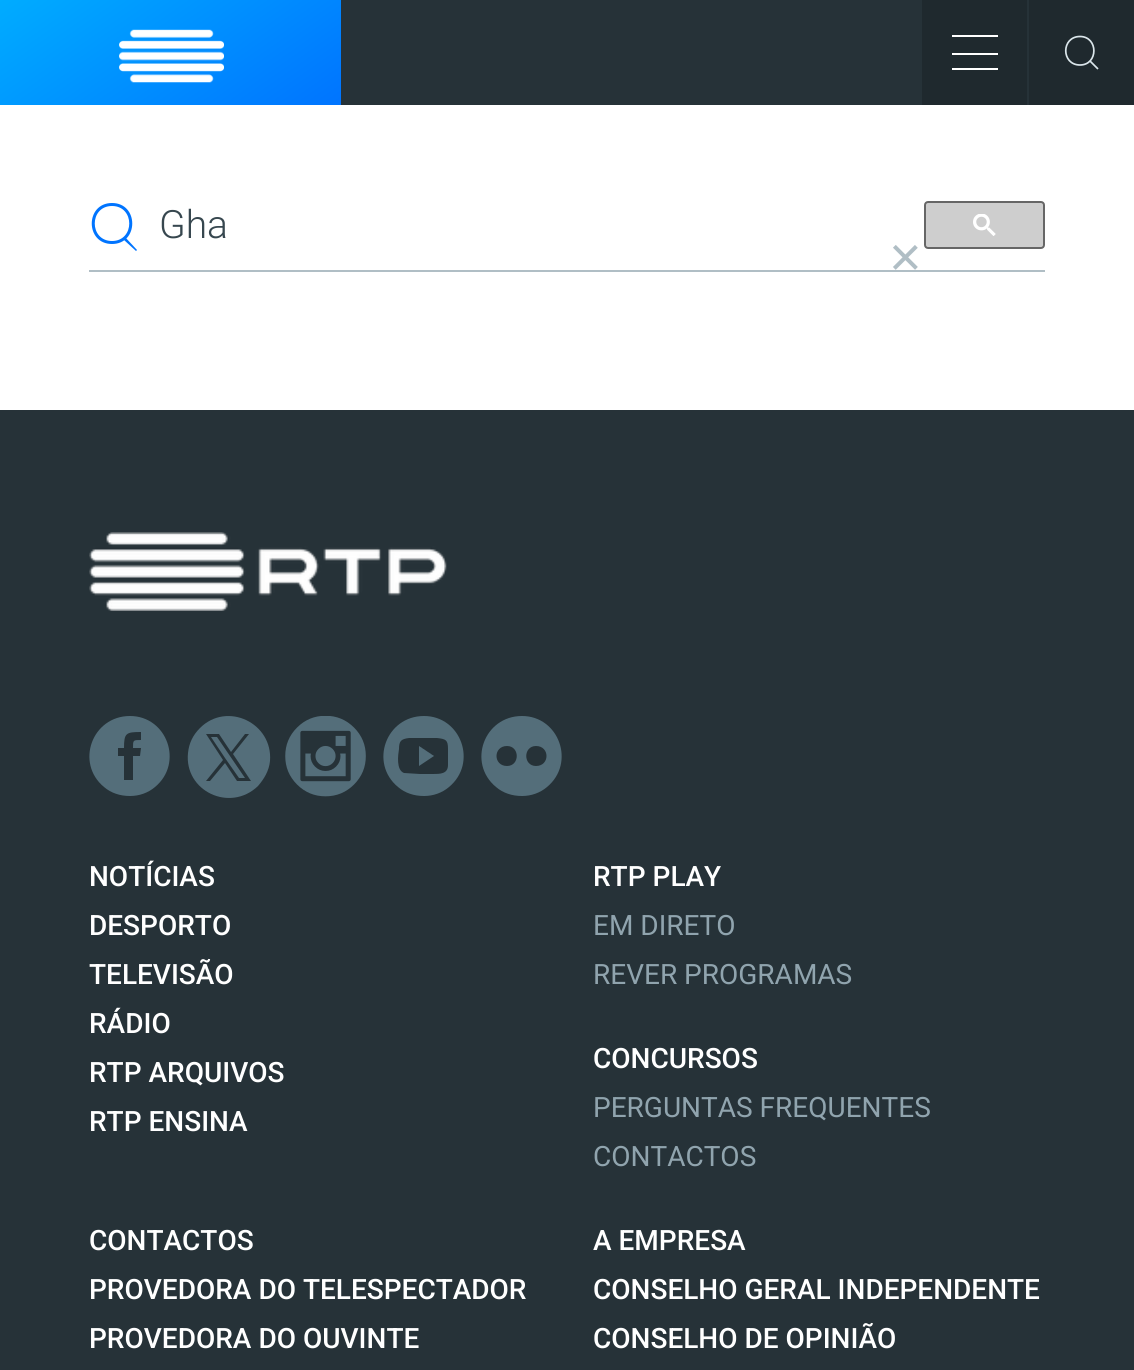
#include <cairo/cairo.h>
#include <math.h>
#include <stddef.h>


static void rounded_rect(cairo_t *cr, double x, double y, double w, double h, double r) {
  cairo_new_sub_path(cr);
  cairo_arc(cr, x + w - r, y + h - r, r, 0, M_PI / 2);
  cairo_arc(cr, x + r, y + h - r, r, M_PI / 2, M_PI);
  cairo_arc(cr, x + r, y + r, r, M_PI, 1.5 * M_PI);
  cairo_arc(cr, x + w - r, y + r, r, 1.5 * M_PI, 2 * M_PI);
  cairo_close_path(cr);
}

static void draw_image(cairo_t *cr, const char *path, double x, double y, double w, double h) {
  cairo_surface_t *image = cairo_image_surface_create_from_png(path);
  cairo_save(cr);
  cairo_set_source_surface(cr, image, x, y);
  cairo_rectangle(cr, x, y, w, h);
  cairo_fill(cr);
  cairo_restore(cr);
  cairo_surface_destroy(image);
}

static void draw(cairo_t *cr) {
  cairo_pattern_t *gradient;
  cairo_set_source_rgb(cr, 1, 1, 1);
  cairo_paint(cr);
  cairo_set_source_rgb(cr, 38 / 255.0, 50 / 255.0, 56 / 255.0);
  cairo_rectangle(cr, 341, 0, 688, 105);
  cairo_fill(cr);
  gradient = cairo_pattern_create_linear(90, -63, 251, 168);
  cairo_pattern_add_color_stop_rgba(gradient, 0, 0, 172 / 255.0, 1, 1);
  cairo_pattern_add_color_stop_rgba(gradient, 1, 0, 116 / 255.0, 1, 1);
  cairo_set_source(cr, gradient);
  cairo_pattern_destroy(gradient);
  cairo_rectangle(cr, 0, 0, 341, 105);
  cairo_fill(cr);
  draw_image(cr, "images/1.png", 119, 29, 105, 54);
  cairo_set_source_rgb(cr, 31 / 255.0, 41 / 255.0, 46 / 255.0);
  cairo_rectangle(cr, 922, 0, 105, 105);
  cairo_fill(cr);
  cairo_set_source_rgb(cr, 1, 1, 1);
  cairo_rectangle(cr, 952, 35, 46, 2);
  cairo_fill(cr);
  cairo_rectangle(cr, 952, 53, 46, 2);
  cairo_fill(cr);
  cairo_rectangle(cr, 952, 68, 46, 2);
  cairo_fill(cr);
  cairo_set_source_rgb(cr, 31 / 255.0, 41 / 255.0, 46 / 255.0);
  cairo_rectangle(cr, 1029, 0, 105, 105);
  cairo_fill(cr);
  cairo_new_path(cr);
  cairo_move_to(cr, 1090, 61);
  cairo_line_to(cr, 1098, 69);
  cairo_move_to(cr, 1080, 65);
  cairo_curve_to(cr, 1098.5, 65, 1098.5, 36.5, 1080, 36.5);
  cairo_curve_to(cr, 1061, 36.5, 1061, 65, 1080, 65);
  cairo_close_path(cr);
  cairo_set_source_rgb(cr, 219 / 255.0, 230 / 255.0, 235 / 255.0);
  cairo_set_line_width(cr, 1.7);
  cairo_stroke(cr);
  cairo_set_source_rgb(cr, 176 / 255.0, 190 / 255.0, 197 / 255.0);
  cairo_rectangle(cr, 89, 270, 956, 2);
  cairo_fill(cr);
  cairo_set_source_rgb(cr, 0, 116 / 255.0, 1);
  cairo_new_path(cr);
  cairo_move_to(cr, 112, 244);
  cairo_curve_to(cr, 85, 244, 85, 203, 112, 203);
  cairo_curve_to(cr, 139, 203, 139, 244, 112, 244);
  cairo_close_path(cr);
  cairo_move_to(cr, 112, 241);
  cairo_curve_to(cr, 135, 241, 135, 206, 112, 206);
  cairo_curve_to(cr, 89, 206, 89, 241, 112, 241);
  cairo_close_path(cr);
  cairo_move_to(cr, 124, 240);
  cairo_line_to(cr, 123, 239);
  cairo_line_to(cr, 125, 237);
  cairo_line_to(cr, 137, 250);
  cairo_line_to(cr, 136, 251);
  cairo_close_path(cr);
  cairo_fill(cr);
  cairo_set_source_rgb(cr, 206 / 255.0, 206 / 255.0, 206 / 255.0);
  rounded_rect(cr, 925, 202, 119, 46, 3);
  cairo_fill_preserve(cr);
  cairo_set_source_rgb(cr, 102 / 255.0, 102 / 255.0, 102 / 255.0);
  cairo_set_line_width(cr, 2);
  cairo_stroke(cr);
  draw_image(cr, "images/2.png", 973, 214, 23, 22);
  cairo_set_source_rgb(cr, 38 / 255.0, 50 / 255.0, 56 / 255.0);
  cairo_rectangle(cr, 0, 410, 1134, 960);
  cairo_fill(cr);
  draw_image(cr, "images/3.png", 89, 532, 358, 79);
  cairo_set_source_rgb(cr, 84 / 255.0, 110 / 255.0, 122 / 255.0);
  cairo_set_fill_rule(cr, CAIRO_FILL_RULE_EVEN_ODD);
  cairo_new_path(cr);
  cairo_move_to(cr, 130, 716);
  cairo_curve_to(cr, 92, 716, 75, 763, 104, 787);
  cairo_curve_to(cr, 111, 793, 120, 796, 130, 796);
  cairo_curve_to(cr, 139, 796, 148, 793, 155, 787);
  cairo_curve_to(cr, 184, 763, 167, 716, 130, 716);
  cairo_close_path(cr);
  cairo_move_to(cr, 140, 756);
  cairo_line_to(cr, 133, 756);
  cairo_line_to(cr, 133, 780);
  cairo_line_to(cr, 124, 780);
  cairo_line_to(cr, 124, 756);
  cairo_line_to(cr, 118, 756);
  cairo_line_to(cr, 118, 748);
  cairo_line_to(cr, 124, 748);
  cairo_curve_to(cr, 124, 733, 126, 732, 141, 732);
  cairo_line_to(cr, 141, 740);
  cairo_curve_to(cr, 133, 740, 133, 740, 133, 748);
  cairo_line_to(cr, 141, 748);
  cairo_close_path(cr);
  cairo_fill(cr);
  cairo_new_path(cr);
  cairo_move_to(cr, 200, 728);
  cairo_curve_to(cr, 227, 701, 273, 723, 270, 761);
  cairo_curve_to(cr, 269, 771, 264, 779, 258, 786);
  cairo_curve_to(cr, 230, 813, 184, 791, 188, 753);
  cairo_curve_to(cr, 189, 743, 193, 735, 200, 728);
  cairo_close_path(cr);
  cairo_move_to(cr, 249, 734);
  cairo_line_to(cr, 233, 754);
  cairo_line_to(cr, 251, 781);
  cairo_line_to(cr, 237, 781);
  cairo_line_to(cr, 225, 763);
  cairo_line_to(cr, 210, 781);
  cairo_line_to(cr, 206, 781);
  cairo_line_to(cr, 223, 760);
  cairo_line_to(cr, 206, 734);
  cairo_line_to(cr, 219, 734);
  cairo_line_to(cr, 231, 752);
  cairo_line_to(cr, 245, 734);
  cairo_close_path(cr);
  cairo_move_to(cr, 225, 758);
  cairo_line_to(cr, 239, 778);
  cairo_line_to(cr, 245, 778);
  cairo_line_to(cr, 217, 737);
  cairo_line_to(cr, 211, 737);
  cairo_close_path(cr);
  cairo_fill(cr);
  draw_image(cr, "images/4.png", 285, 716, 81, 81);
  cairo_new_path(cr);
  cairo_move_to(cr, 424, 716);
  cairo_curve_to(cr, 386, 716, 369, 763, 398, 787);
  cairo_curve_to(cr, 405, 793, 414, 796, 424, 796);
  cairo_curve_to(cr, 433, 796, 442, 793, 449, 787);
  cairo_curve_to(cr, 478, 763, 461, 716, 424, 716);
  cairo_close_path(cr);
  cairo_move_to(cr, 448, 765);
  cairo_curve_to(cr, 448, 774, 440, 774, 433, 774);
  cairo_line_to(cr, 420, 774);
  cairo_line_to(cr, 404, 773);
  cairo_curve_to(cr, 396, 770, 398, 755, 399, 749);
  cairo_curve_to(cr, 399, 741, 401, 739, 409, 738);
  cairo_line_to(cr, 437, 738);
  cairo_curve_to(cr, 446, 739, 448, 740, 448, 749);
  cairo_close_path(cr);
  cairo_move_to(cr, 419, 766);
  cairo_line_to(cr, 434, 756);
  cairo_line_to(cr, 419, 746);
  cairo_close_path(cr);
  cairo_fill(cr);
  cairo_new_path(cr);
  cairo_move_to(cr, 522, 716);
  cairo_curve_to(cr, 484, 716, 467, 763, 496, 787);
  cairo_curve_to(cr, 503, 793, 512, 796, 522, 796);
  cairo_curve_to(cr, 531, 796, 540, 793, 547, 787);
  cairo_curve_to(cr, 576, 763, 559, 716, 522, 716);
  cairo_close_path(cr);
  cairo_move_to(cr, 507, 766);
  cairo_curve_to(cr, 493, 766, 493, 746, 507, 746);
  cairo_curve_to(cr, 520, 746, 520, 766, 507, 766);
  cairo_close_path(cr);
  cairo_move_to(cr, 536, 766);
  cairo_curve_to(cr, 523, 766, 523, 746, 536, 746);
  cairo_curve_to(cr, 550, 746, 550, 766, 536, 766);
  cairo_close_path(cr);
  cairo_fill(cr);
  cairo_select_font_face(cr, "Roboto Light", CAIRO_FONT_SLANT_NORMAL, CAIRO_FONT_WEIGHT_NORMAL);
  cairo_set_font_size(cr, 39);
  cairo_set_source_rgb(cr, 55 / 255.0, 71 / 255.0, 79 / 255.0);
  cairo_move_to(cr, 159, 238);
  cairo_show_text(cr, "Gha");
  cairo_select_font_face(cr, "Liberation Sans", CAIRO_FONT_SLANT_NORMAL, CAIRO_FONT_WEIGHT_NORMAL);
  cairo_set_font_size(cr, 56);
  cairo_set_source_rgb(cr, 176 / 255.0, 190 / 255.0, 197 / 255.0);
  cairo_move_to(cr, 889, 276);
  cairo_show_text(cr, "×");
  cairo_select_font_face(cr, "Roboto Medium", CAIRO_FONT_SLANT_NORMAL, CAIRO_FONT_WEIGHT_NORMAL);
  cairo_set_font_size(cr, 28);
  cairo_set_source_rgb(cr, 1, 1, 1);
  cairo_move_to(cr, 89, 886);
  cairo_show_text(cr, "NOTÍCIAS");
  cairo_move_to(cr, 89, 935);
  cairo_show_text(cr, "DESPORTO");
  cairo_move_to(cr, 89, 984);
  cairo_show_text(cr, "TELEVISÃO");
  cairo_move_to(cr, 89, 1033);
  cairo_show_text(cr, "RÁDIO");
  cairo_move_to(cr, 89, 1082);
  cairo_show_text(cr, "RTP ARQUIVOS");
  cairo_move_to(cr, 89, 1131);
  cairo_show_text(cr, "RTP ENSINA");
  cairo_move_to(cr, 593, 886);
  cairo_show_text(cr, "RTP PLAY");
  cairo_select_font_face(cr, "Roboto", CAIRO_FONT_SLANT_NORMAL, CAIRO_FONT_WEIGHT_NORMAL);
  cairo_set_source_rgb(cr, 144 / 255.0, 164 / 255.0, 174 / 255.0);
  cairo_move_to(cr, 593, 935);
  cairo_show_text(cr, "EM DIRETO");
  cairo_move_to(cr, 593, 984);
  cairo_show_text(cr, "REVER PROGRAMAS");
  cairo_select_font_face(cr, "Roboto Medium", CAIRO_FONT_SLANT_NORMAL, CAIRO_FONT_WEIGHT_NORMAL);
  cairo_set_source_rgb(cr, 1, 1, 1);
  cairo_move_to(cr, 593, 1068);
  cairo_show_text(cr, "CONCURSOS");
  cairo_select_font_face(cr, "Roboto", CAIRO_FONT_SLANT_NORMAL, CAIRO_FONT_WEIGHT_NORMAL);
  cairo_set_source_rgb(cr, 144 / 255.0, 164 / 255.0, 174 / 255.0);
  cairo_move_to(cr, 593, 1117);
  cairo_show_text(cr, "PERGUNTAS FREQUENTES");
  cairo_move_to(cr, 593, 1166);
  cairo_show_text(cr, "CONTACTOS");
  cairo_select_font_face(cr, "Roboto Medium", CAIRO_FONT_SLANT_NORMAL, CAIRO_FONT_WEIGHT_NORMAL);
  cairo_set_source_rgb(cr, 1, 1, 1);
  cairo_move_to(cr, 89, 1250);
  cairo_show_text(cr, "CONTACTOS");
  cairo_move_to(cr, 89, 1299);
  cairo_show_text(cr, "PROVEDORA DO TELESPECTADOR");
  cairo_move_to(cr, 89, 1348);
  cairo_show_text(cr, "PROVEDORA DO OUVINTE");
  cairo_move_to(cr, 593, 1250);
  cairo_show_text(cr, "A EMPRESA");
  cairo_move_to(cr, 593, 1299);
  cairo_show_text(cr, "CONSELHO GERAL INDEPENDENTE");
  cairo_move_to(cr, 593, 1348);
  cairo_show_text(cr, "CONSELHO DE OPINIÃO");
}

int main(void) {
  cairo_surface_t *surface = cairo_image_surface_create(CAIRO_FORMAT_RGB24, 1134, 1370);
  cairo_t *cr = cairo_create(surface);
  cairo_font_options_t *options = cairo_font_options_create();
  cairo_font_options_set_hint_metrics(options, CAIRO_HINT_METRICS_OFF);
  cairo_font_options_set_hint_style(options, CAIRO_HINT_STYLE_NONE);
  cairo_set_font_options(cr, options);
  cairo_set_miter_limit(cr, 4);
  draw(cr);
  cairo_surface_write_to_png(surface, "out.png");
  cairo_font_options_destroy(options);
  cairo_destroy(cr);
  cairo_surface_destroy(surface);
  return 0;
}
